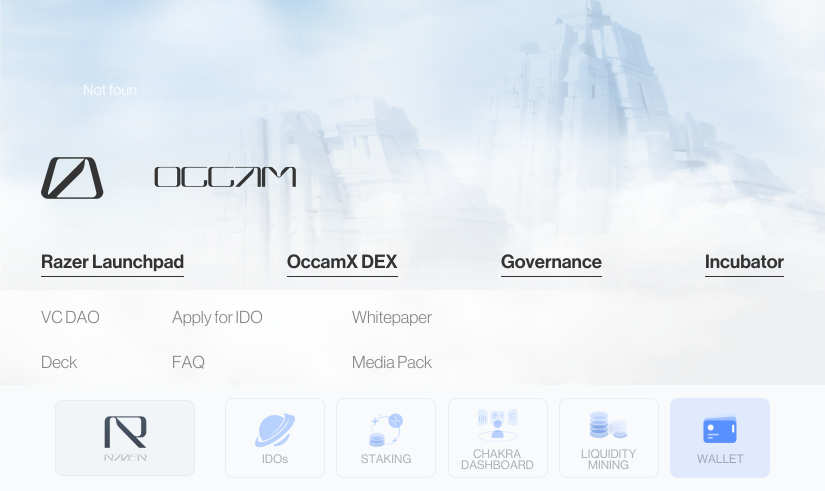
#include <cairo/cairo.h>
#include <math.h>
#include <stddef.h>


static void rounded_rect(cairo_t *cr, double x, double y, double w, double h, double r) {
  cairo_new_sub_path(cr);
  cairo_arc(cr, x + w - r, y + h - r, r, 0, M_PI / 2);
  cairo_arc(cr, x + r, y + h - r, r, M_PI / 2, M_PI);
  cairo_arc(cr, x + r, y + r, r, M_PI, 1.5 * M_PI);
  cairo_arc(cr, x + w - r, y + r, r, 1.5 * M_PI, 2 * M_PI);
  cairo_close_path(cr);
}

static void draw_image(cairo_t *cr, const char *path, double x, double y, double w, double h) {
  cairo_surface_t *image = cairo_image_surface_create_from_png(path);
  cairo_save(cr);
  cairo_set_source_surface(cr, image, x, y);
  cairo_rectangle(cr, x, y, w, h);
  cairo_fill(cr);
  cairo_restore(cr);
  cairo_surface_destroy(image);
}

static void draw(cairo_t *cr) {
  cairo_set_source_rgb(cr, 239 / 255.0, 240 / 255.0, 241 / 255.0);
  cairo_paint(cr);
  draw_image(cr, "images/2.png", 0, 134, 772, 251);
  draw_image(cr, "images/1.png", 0, 0, 825, 290);
  draw_image(cr, "images/3.png", 41, 157, 255, 42);
  cairo_set_source_rgb(cr, 51 / 255.0, 51 / 255.0, 51 / 255.0);
  cairo_rectangle(cr, 41, 276, 143, 1);
  cairo_fill(cr);
  cairo_rectangle(cr, 287, 276, 111, 1);
  cairo_fill(cr);
  cairo_rectangle(cr, 501, 276, 101, 1);
  cairo_fill(cr);
  cairo_rectangle(cr, 705, 276, 79, 1);
  cairo_fill(cr);
  cairo_set_source_rgb(cr, 248 / 255.0, 250 / 255.0, 252 / 255.0);
  cairo_rectangle(cr, 0, 385, 825, 106);
  cairo_fill(cr);
  cairo_set_source_rgb(cr, 241 / 255.0, 245 / 255.0, 248 / 255.0);
  rounded_rect(cr, 55, 400, 140, 76, 8);
  cairo_fill(cr);
  rounded_rect(cr, 55.5, 400.5, 139, 75, 7.5);
  cairo_set_source_rgba(cr, 210 / 255.0, 220 / 255.0, 228 / 255.0, 0.4);
  cairo_set_line_width(cr, 1);
  cairo_stroke(cr);
  draw_image(cr, "images/4.png", 104, 416, 43, 45);
  rounded_rect(cr, 225.5, 398.5, 99, 79, 7.5);
  cairo_set_source_rgb(cr, 233 / 255.0, 238 / 255.0, 242 / 255.0);
  cairo_stroke(cr);
  draw_image(cr, "images/5.png", 255, 413, 40, 35);
  rounded_rect(cr, 336.5, 398.5, 99, 79, 7.5);
  cairo_stroke(cr);
  draw_image(cr, "images/6.png", 369, 413, 34, 34);
  rounded_rect(cr, 448.5, 398.5, 99, 79, 7.5);
  cairo_stroke(cr);
  draw_image(cr, "images/7.png", 478, 409, 40, 33);
  rounded_rect(cr, 559.5, 398.5, 99, 79, 7.5);
  cairo_stroke(cr);
  draw_image(cr, "images/8.png", 589, 411, 39, 28);
  cairo_set_source_rgb(cr, 224 / 255.0, 234 / 255.0, 252 / 255.0);
  rounded_rect(cr, 670, 398, 100, 80, 8);
  cairo_fill(cr);
  draw_image(cr, "images/9.png", 703, 413, 34, 30);
  cairo_select_font_face(cr, "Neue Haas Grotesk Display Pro", CAIRO_FONT_SLANT_NORMAL, CAIRO_FONT_WEIGHT_NORMAL);
  cairo_set_font_size(cr, 15);
  cairo_set_source_rgb(cr, 248 / 255.0, 250 / 255.0, 252 / 255.0);
  cairo_move_to(cr, 83, 95);
  cairo_show_text(cr, "Not foun");
  cairo_select_font_face(cr, "Neue Haas Grotesk Display Pro SemiBold", CAIRO_FONT_SLANT_NORMAL, CAIRO_FONT_WEIGHT_NORMAL);
  cairo_set_font_size(cr, 18.75);
  cairo_set_source_rgb(cr, 51 / 255.0, 51 / 255.0, 51 / 255.0);
  cairo_move_to(cr, 41, 268);
  cairo_show_text(cr, "Razer Launchpad");
  cairo_move_to(cr, 287, 268);
  cairo_show_text(cr, "OccamX DEX");
  cairo_move_to(cr, 501, 268);
  cairo_show_text(cr, "Governance");
  cairo_move_to(cr, 705, 268);
  cairo_show_text(cr, "Incubator");
  cairo_select_font_face(cr, "Neue Haas Grotesk Display Pro Light", CAIRO_FONT_SLANT_NORMAL, CAIRO_FONT_WEIGHT_NORMAL);
  cairo_set_font_size(cr, 17);
  cairo_set_source_rgb(cr, 132 / 255.0, 132 / 255.0, 132 / 255.0);
  cairo_move_to(cr, 41, 323);
  cairo_show_text(cr, "VC DAO");
  cairo_move_to(cr, 172, 323);
  cairo_show_text(cr, "Apply for IDO");
  cairo_move_to(cr, 352, 323);
  cairo_show_text(cr, "Whitepaper");
  cairo_move_to(cr, 41, 368);
  cairo_show_text(cr, "Deck");
  cairo_move_to(cr, 172, 368);
  cairo_show_text(cr, "FAQ");
  cairo_move_to(cr, 352, 368);
  cairo_show_text(cr, "Media Pack");
  cairo_select_font_face(cr, "Neue Haas Grotesk Display Pro", CAIRO_FONT_SLANT_NORMAL, CAIRO_FONT_WEIGHT_NORMAL);
  cairo_set_font_size(cr, 12);
  cairo_set_source_rgb(cr, 172 / 255.0, 175 / 255.0, 183 / 255.0);
  cairo_move_to(cr, 262, 463);
  cairo_show_text(cr, "IDOs");
  cairo_move_to(cr, 361, 463);
  cairo_show_text(cr, "STAKING");
  cairo_move_to(cr, 473, 458);
  cairo_show_text(cr, "CHAKRA");
  cairo_move_to(cr, 461, 469);
  cairo_show_text(cr, "DASHBOARD");
  cairo_move_to(cr, 581, 458);
  cairo_show_text(cr, "LIQUIDITY");
  cairo_move_to(cr, 588, 469);
  cairo_show_text(cr, "MINING");
  cairo_set_source_rgb(cr, 157 / 255.0, 166 / 255.0, 183 / 255.0);
  cairo_move_to(cr, 697, 463);
  cairo_show_text(cr, "WALLET");
}

int main(void) {
  cairo_surface_t *surface = cairo_image_surface_create(CAIRO_FORMAT_RGB24, 825, 491);
  cairo_t *cr = cairo_create(surface);
  cairo_font_options_t *options = cairo_font_options_create();
  cairo_font_options_set_hint_metrics(options, CAIRO_HINT_METRICS_OFF);
  cairo_font_options_set_hint_style(options, CAIRO_HINT_STYLE_NONE);
  cairo_set_font_options(cr, options);
  cairo_set_miter_limit(cr, 4);
  draw(cr);
  cairo_surface_write_to_png(surface, "out.png");
  cairo_font_options_destroy(options);
  cairo_destroy(cr);
  cairo_surface_destroy(surface);
  return 0;
}
